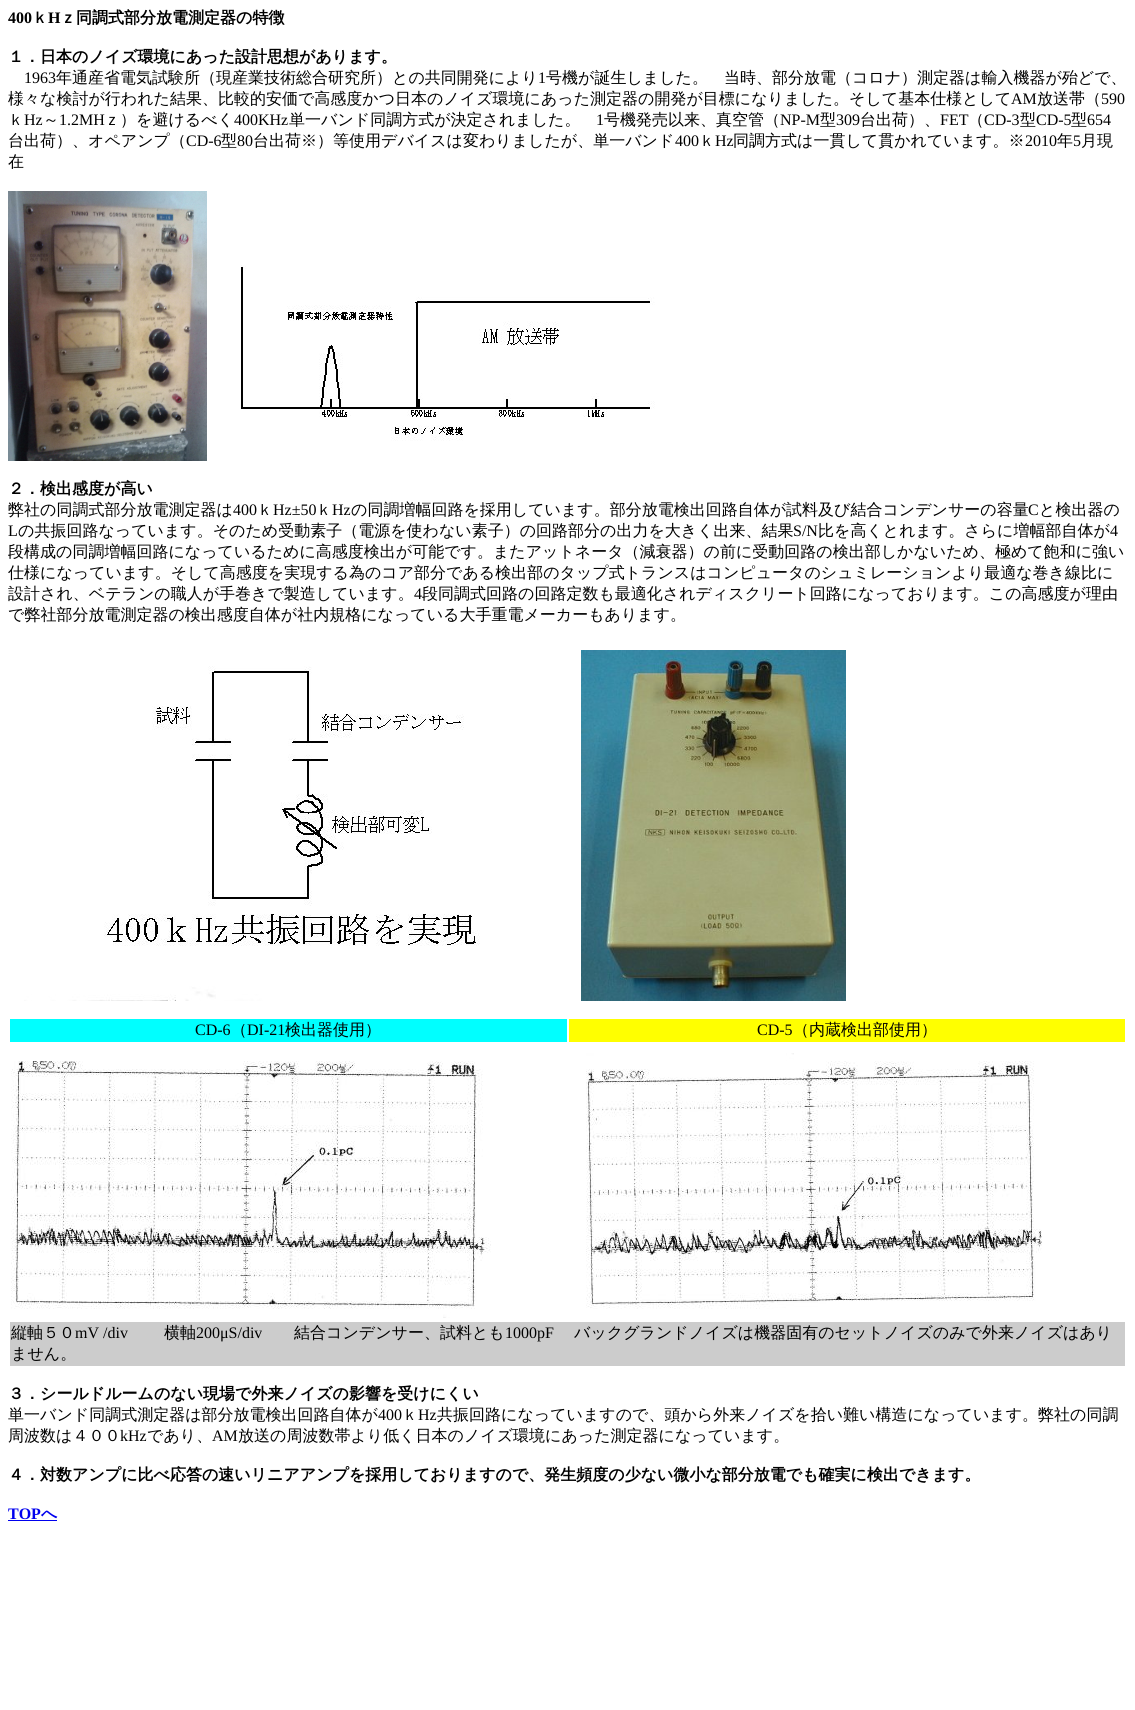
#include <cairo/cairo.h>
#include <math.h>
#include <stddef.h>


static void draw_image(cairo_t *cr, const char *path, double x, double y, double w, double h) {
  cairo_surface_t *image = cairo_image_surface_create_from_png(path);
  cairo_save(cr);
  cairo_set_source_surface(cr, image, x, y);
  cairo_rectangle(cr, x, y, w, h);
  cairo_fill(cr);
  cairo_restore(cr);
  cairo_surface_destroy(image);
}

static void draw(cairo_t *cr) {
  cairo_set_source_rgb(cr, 1, 1, 1);
  cairo_paint(cr);
  draw_image(cr, "images/1.png", 8, 191, 199, 270);
  draw_image(cr, "images/2.png", 241, 265, 414, 176);
  draw_image(cr, "images/3.png", 24, 666, 456, 335);
  draw_image(cr, "images/4.png", 581, 650, 265, 351);
  cairo_set_source_rgb(cr, 0, 1, 1);
  cairo_rectangle(cr, 10, 1019, 557, 23);
  cairo_fill(cr);
  cairo_set_source_rgb(cr, 1, 1, 0);
  cairo_rectangle(cr, 569, 1019, 556, 23);
  cairo_fill(cr);
  draw_image(cr, "images/5.png", 11, 1061, 480, 257);
  draw_image(cr, "images/6.png", 586, 1053, 456, 256);
  cairo_set_source_rgb(cr, 204 / 255.0, 204 / 255.0, 204 / 255.0);
  cairo_rectangle(cr, 10, 1322, 1115, 44);
  cairo_fill(cr);
  cairo_set_source_rgb(cr, 0, 0, 238 / 255.0);
  cairo_rectangle(cr, 8, 1520, 49, 1);
  cairo_fill(cr);
  cairo_select_font_face(cr, "Liberation Serif", CAIRO_FONT_SLANT_NORMAL, CAIRO_FONT_WEIGHT_BOLD);
  cairo_set_font_size(cr, 16);
  cairo_set_source_rgb(cr, 0, 0, 0);
  cairo_move_to(cr, 8, 23);
  cairo_show_text(cr, "400");
  cairo_select_font_face(cr, "WenQuanYi Zen Hei", CAIRO_FONT_SLANT_NORMAL, CAIRO_FONT_WEIGHT_BOLD);
  cairo_move_to(cr, 32, 23);
  cairo_show_text(cr, "ｋ");
  cairo_select_font_face(cr, "Liberation Serif", CAIRO_FONT_SLANT_NORMAL, CAIRO_FONT_WEIGHT_BOLD);
  cairo_move_to(cr, 48, 23);
  cairo_show_text(cr, "H");
  cairo_select_font_face(cr, "WenQuanYi Zen Hei", CAIRO_FONT_SLANT_NORMAL, CAIRO_FONT_WEIGHT_BOLD);
  cairo_move_to(cr, 60, 23);
  cairo_show_text(cr, "ｚ同調式部分放電測定器の特徴");
  cairo_move_to(cr, 8, 62);
  cairo_show_text(cr, "１．日本のノイズ環境にあった設計思想があります。");
  cairo_select_font_face(cr, "Liberation Serif", CAIRO_FONT_SLANT_NORMAL, CAIRO_FONT_WEIGHT_NORMAL);
  cairo_move_to(cr, 24, 83);
  cairo_show_text(cr, "1963");
  cairo_select_font_face(cr, "WenQuanYi Zen Hei Medium", CAIRO_FONT_SLANT_NORMAL, CAIRO_FONT_WEIGHT_NORMAL);
  cairo_move_to(cr, 56, 83);
  cairo_show_text(cr, "年通産省電気試験所（現産業技術総合研究所）との共同開発により");
  cairo_select_font_face(cr, "Liberation Serif", CAIRO_FONT_SLANT_NORMAL, CAIRO_FONT_WEIGHT_NORMAL);
  cairo_move_to(cr, 538, 83);
  cairo_show_text(cr, "1");
  cairo_select_font_face(cr, "WenQuanYi Zen Hei Medium", CAIRO_FONT_SLANT_NORMAL, CAIRO_FONT_WEIGHT_NORMAL);
  cairo_move_to(cr, 546, 83);
  cairo_show_text(cr, "号機が誕生しました。　当時、部分放電（コロナ）測定器は輸入機器が殆どで、");
  cairo_move_to(cr, 8, 104);
  cairo_show_text(cr, "様々な検討が行われた結果、比較的安価で高感度かつ日本のノイズ環境にあった測定器の開発が目標になりました。そして基本仕様として");
  cairo_select_font_face(cr, "Liberation Serif", CAIRO_FONT_SLANT_NORMAL, CAIRO_FONT_WEIGHT_NORMAL);
  cairo_move_to(cr, 1011, 104);
  cairo_show_text(cr, "AM");
  cairo_select_font_face(cr, "WenQuanYi Zen Hei Medium", CAIRO_FONT_SLANT_NORMAL, CAIRO_FONT_WEIGHT_NORMAL);
  cairo_move_to(cr, 1037, 104);
  cairo_show_text(cr, "放送帯（");
  cairo_select_font_face(cr, "Liberation Serif", CAIRO_FONT_SLANT_NORMAL, CAIRO_FONT_WEIGHT_NORMAL);
  cairo_move_to(cr, 1101, 104);
  cairo_show_text(cr, "590");
  cairo_select_font_face(cr, "WenQuanYi Zen Hei Medium", CAIRO_FONT_SLANT_NORMAL, CAIRO_FONT_WEIGHT_NORMAL);
  cairo_move_to(cr, 8, 125);
  cairo_show_text(cr, "ｋ");
  cairo_select_font_face(cr, "Liberation Serif", CAIRO_FONT_SLANT_NORMAL, CAIRO_FONT_WEIGHT_NORMAL);
  cairo_move_to(cr, 24, 125);
  cairo_show_text(cr, "Hz");
  cairo_select_font_face(cr, "WenQuanYi Zen Hei Medium", CAIRO_FONT_SLANT_NORMAL, CAIRO_FONT_WEIGHT_NORMAL);
  cairo_move_to(cr, 43, 125);
  cairo_show_text(cr, "～");
  cairo_select_font_face(cr, "Liberation Serif", CAIRO_FONT_SLANT_NORMAL, CAIRO_FONT_WEIGHT_NORMAL);
  cairo_move_to(cr, 59, 125);
  cairo_show_text(cr, "1.2MH");
  cairo_select_font_face(cr, "WenQuanYi Zen Hei Medium", CAIRO_FONT_SLANT_NORMAL, CAIRO_FONT_WEIGHT_NORMAL);
  cairo_move_to(cr, 104, 125);
  cairo_show_text(cr, "ｚ）を避けるべく");
  cairo_select_font_face(cr, "Liberation Serif", CAIRO_FONT_SLANT_NORMAL, CAIRO_FONT_WEIGHT_NORMAL);
  cairo_move_to(cr, 234, 125);
  cairo_show_text(cr, "400KHz");
  cairo_select_font_face(cr, "WenQuanYi Zen Hei Medium", CAIRO_FONT_SLANT_NORMAL, CAIRO_FONT_WEIGHT_NORMAL);
  cairo_move_to(cr, 289, 125);
  cairo_show_text(cr, "単一バンド同調方式が決定されました。");
  cairo_select_font_face(cr, "Liberation Serif", CAIRO_FONT_SLANT_NORMAL, CAIRO_FONT_WEIGHT_NORMAL);
  cairo_move_to(cr, 596, 125);
  cairo_show_text(cr, "1");
  cairo_select_font_face(cr, "WenQuanYi Zen Hei Medium", CAIRO_FONT_SLANT_NORMAL, CAIRO_FONT_WEIGHT_NORMAL);
  cairo_move_to(cr, 604, 125);
  cairo_show_text(cr, "号機発売以来、真空管（");
  cairo_select_font_face(cr, "Liberation Serif", CAIRO_FONT_SLANT_NORMAL, CAIRO_FONT_WEIGHT_NORMAL);
  cairo_move_to(cr, 780, 125);
  cairo_show_text(cr, "NP-M");
  cairo_select_font_face(cr, "WenQuanYi Zen Hei Medium", CAIRO_FONT_SLANT_NORMAL, CAIRO_FONT_WEIGHT_NORMAL);
  cairo_move_to(cr, 820, 125);
  cairo_show_text(cr, "型");
  cairo_select_font_face(cr, "Liberation Serif", CAIRO_FONT_SLANT_NORMAL, CAIRO_FONT_WEIGHT_NORMAL);
  cairo_move_to(cr, 836, 125);
  cairo_show_text(cr, "309");
  cairo_select_font_face(cr, "WenQuanYi Zen Hei Medium", CAIRO_FONT_SLANT_NORMAL, CAIRO_FONT_WEIGHT_NORMAL);
  cairo_move_to(cr, 860, 125);
  cairo_show_text(cr, "台出荷）、");
  cairo_select_font_face(cr, "Liberation Serif", CAIRO_FONT_SLANT_NORMAL, CAIRO_FONT_WEIGHT_NORMAL);
  cairo_move_to(cr, 940, 125);
  cairo_show_text(cr, "FET");
  cairo_select_font_face(cr, "WenQuanYi Zen Hei Medium", CAIRO_FONT_SLANT_NORMAL, CAIRO_FONT_WEIGHT_NORMAL);
  cairo_move_to(cr, 968, 125);
  cairo_show_text(cr, "（");
  cairo_select_font_face(cr, "Liberation Serif", CAIRO_FONT_SLANT_NORMAL, CAIRO_FONT_WEIGHT_NORMAL);
  cairo_move_to(cr, 984, 125);
  cairo_show_text(cr, "CD-3");
  cairo_select_font_face(cr, "WenQuanYi Zen Hei Medium", CAIRO_FONT_SLANT_NORMAL, CAIRO_FONT_WEIGHT_NORMAL);
  cairo_move_to(cr, 1020, 125);
  cairo_show_text(cr, "型");
  cairo_select_font_face(cr, "Liberation Serif", CAIRO_FONT_SLANT_NORMAL, CAIRO_FONT_WEIGHT_NORMAL);
  cairo_move_to(cr, 1036, 125);
  cairo_show_text(cr, "CD-5");
  cairo_select_font_face(cr, "WenQuanYi Zen Hei Medium", CAIRO_FONT_SLANT_NORMAL, CAIRO_FONT_WEIGHT_NORMAL);
  cairo_move_to(cr, 1071, 125);
  cairo_show_text(cr, "型");
  cairo_select_font_face(cr, "Liberation Serif", CAIRO_FONT_SLANT_NORMAL, CAIRO_FONT_WEIGHT_NORMAL);
  cairo_move_to(cr, 1087, 125);
  cairo_show_text(cr, "654");
  cairo_select_font_face(cr, "WenQuanYi Zen Hei Medium", CAIRO_FONT_SLANT_NORMAL, CAIRO_FONT_WEIGHT_NORMAL);
  cairo_move_to(cr, 8, 146);
  cairo_show_text(cr, "台出荷）、オペアンプ（");
  cairo_select_font_face(cr, "Liberation Serif", CAIRO_FONT_SLANT_NORMAL, CAIRO_FONT_WEIGHT_NORMAL);
  cairo_move_to(cr, 186, 146);
  cairo_show_text(cr, "CD-6");
  cairo_select_font_face(cr, "WenQuanYi Zen Hei Medium", CAIRO_FONT_SLANT_NORMAL, CAIRO_FONT_WEIGHT_NORMAL);
  cairo_move_to(cr, 221, 146);
  cairo_show_text(cr, "型");
  cairo_select_font_face(cr, "Liberation Serif", CAIRO_FONT_SLANT_NORMAL, CAIRO_FONT_WEIGHT_NORMAL);
  cairo_move_to(cr, 237, 146);
  cairo_show_text(cr, "80");
  cairo_select_font_face(cr, "WenQuanYi Zen Hei Medium", CAIRO_FONT_SLANT_NORMAL, CAIRO_FONT_WEIGHT_NORMAL);
  cairo_move_to(cr, 253, 146);
  cairo_show_text(cr, "台出荷※）等使用デバイスは変わりましたが、単一バンド");
  cairo_select_font_face(cr, "Liberation Serif", CAIRO_FONT_SLANT_NORMAL, CAIRO_FONT_WEIGHT_NORMAL);
  cairo_move_to(cr, 675, 146);
  cairo_show_text(cr, "400");
  cairo_select_font_face(cr, "WenQuanYi Zen Hei Medium", CAIRO_FONT_SLANT_NORMAL, CAIRO_FONT_WEIGHT_NORMAL);
  cairo_move_to(cr, 699, 146);
  cairo_show_text(cr, "ｋ");
  cairo_select_font_face(cr, "Liberation Serif", CAIRO_FONT_SLANT_NORMAL, CAIRO_FONT_WEIGHT_NORMAL);
  cairo_move_to(cr, 715, 146);
  cairo_show_text(cr, "Hz");
  cairo_select_font_face(cr, "WenQuanYi Zen Hei Medium", CAIRO_FONT_SLANT_NORMAL, CAIRO_FONT_WEIGHT_NORMAL);
  cairo_move_to(cr, 733, 146);
  cairo_show_text(cr, "同調方式は一貫して貫かれています。※");
  cairo_select_font_face(cr, "Liberation Serif", CAIRO_FONT_SLANT_NORMAL, CAIRO_FONT_WEIGHT_NORMAL);
  cairo_move_to(cr, 1025, 146);
  cairo_show_text(cr, "2010");
  cairo_select_font_face(cr, "WenQuanYi Zen Hei Medium", CAIRO_FONT_SLANT_NORMAL, CAIRO_FONT_WEIGHT_NORMAL);
  cairo_move_to(cr, 1057, 146);
  cairo_show_text(cr, "年");
  cairo_select_font_face(cr, "Liberation Serif", CAIRO_FONT_SLANT_NORMAL, CAIRO_FONT_WEIGHT_NORMAL);
  cairo_move_to(cr, 1073, 146);
  cairo_show_text(cr, "5");
  cairo_select_font_face(cr, "WenQuanYi Zen Hei Medium", CAIRO_FONT_SLANT_NORMAL, CAIRO_FONT_WEIGHT_NORMAL);
  cairo_move_to(cr, 1081, 146);
  cairo_show_text(cr, "月現");
  cairo_move_to(cr, 8, 167);
  cairo_show_text(cr, "在");
  cairo_select_font_face(cr, "WenQuanYi Zen Hei", CAIRO_FONT_SLANT_NORMAL, CAIRO_FONT_WEIGHT_BOLD);
  cairo_move_to(cr, 8, 494);
  cairo_show_text(cr, "２．検出感度が高い");
  cairo_select_font_face(cr, "WenQuanYi Zen Hei Medium", CAIRO_FONT_SLANT_NORMAL, CAIRO_FONT_WEIGHT_NORMAL);
  cairo_move_to(cr, 8, 515);
  cairo_show_text(cr, "弊社の同調式部分放電測定器は");
  cairo_select_font_face(cr, "Liberation Serif", CAIRO_FONT_SLANT_NORMAL, CAIRO_FONT_WEIGHT_NORMAL);
  cairo_move_to(cr, 233, 515);
  cairo_show_text(cr, "400");
  cairo_select_font_face(cr, "WenQuanYi Zen Hei Medium", CAIRO_FONT_SLANT_NORMAL, CAIRO_FONT_WEIGHT_NORMAL);
  cairo_move_to(cr, 257, 515);
  cairo_show_text(cr, "ｋ");
  cairo_select_font_face(cr, "Liberation Serif", CAIRO_FONT_SLANT_NORMAL, CAIRO_FONT_WEIGHT_NORMAL);
  cairo_move_to(cr, 273, 515);
  cairo_show_text(cr, "Hz±50");
  cairo_select_font_face(cr, "WenQuanYi Zen Hei Medium", CAIRO_FONT_SLANT_NORMAL, CAIRO_FONT_WEIGHT_NORMAL);
  cairo_move_to(cr, 316, 515);
  cairo_show_text(cr, "ｋ");
  cairo_select_font_face(cr, "Liberation Serif", CAIRO_FONT_SLANT_NORMAL, CAIRO_FONT_WEIGHT_NORMAL);
  cairo_move_to(cr, 332, 515);
  cairo_show_text(cr, "Hz");
  cairo_select_font_face(cr, "WenQuanYi Zen Hei Medium", CAIRO_FONT_SLANT_NORMAL, CAIRO_FONT_WEIGHT_NORMAL);
  cairo_move_to(cr, 351, 515);
  cairo_show_text(cr, "の同調増幅回路を採用しています。部分放電検出回路自体が試料及び結合コンデンサーの容量");
  cairo_select_font_face(cr, "Liberation Serif", CAIRO_FONT_SLANT_NORMAL, CAIRO_FONT_WEIGHT_NORMAL);
  cairo_move_to(cr, 1028, 515);
  cairo_show_text(cr, "C");
  cairo_select_font_face(cr, "WenQuanYi Zen Hei Medium", CAIRO_FONT_SLANT_NORMAL, CAIRO_FONT_WEIGHT_NORMAL);
  cairo_move_to(cr, 1039, 515);
  cairo_show_text(cr, "と検出器の");
  cairo_select_font_face(cr, "Liberation Serif", CAIRO_FONT_SLANT_NORMAL, CAIRO_FONT_WEIGHT_NORMAL);
  cairo_move_to(cr, 8, 536);
  cairo_show_text(cr, "L");
  cairo_select_font_face(cr, "WenQuanYi Zen Hei Medium", CAIRO_FONT_SLANT_NORMAL, CAIRO_FONT_WEIGHT_NORMAL);
  cairo_move_to(cr, 18, 536);
  cairo_show_text(cr, "の共振回路なっています。そのため受動素子（電源を使わない素子）の回路部分の出力を大きく出来、結果");
  cairo_select_font_face(cr, "Liberation Serif", CAIRO_FONT_SLANT_NORMAL, CAIRO_FONT_WEIGHT_NORMAL);
  cairo_move_to(cr, 793, 536);
  cairo_show_text(cr, "S/N");
  cairo_select_font_face(cr, "WenQuanYi Zen Hei Medium", CAIRO_FONT_SLANT_NORMAL, CAIRO_FONT_WEIGHT_NORMAL);
  cairo_move_to(cr, 818, 536);
  cairo_show_text(cr, "比を高くとれます。さらに増幅部自体が");
  cairo_select_font_face(cr, "Liberation Serif", CAIRO_FONT_SLANT_NORMAL, CAIRO_FONT_WEIGHT_NORMAL);
  cairo_move_to(cr, 1110, 536);
  cairo_show_text(cr, "4");
  cairo_select_font_face(cr, "WenQuanYi Zen Hei Medium", CAIRO_FONT_SLANT_NORMAL, CAIRO_FONT_WEIGHT_NORMAL);
  cairo_move_to(cr, 8, 557);
  cairo_show_text(cr, "段構成の同調増幅回路になっているために高感度検出が可能です。またアットネータ（減衰器）の前に受動回路の検出部しかないため、極めて飽和に強い");
  cairo_move_to(cr, 8, 578);
  cairo_show_text(cr, "仕様になっています。そして高感度を実現する為のコア部分である検出部のタップ式トランスはコンピュータのシュミレーションより最適な巻き線比に");
  cairo_move_to(cr, 8, 599);
  cairo_show_text(cr, "設計され、ベテランの職人が手巻きで製造しています。");
  cairo_select_font_face(cr, "Liberation Serif", CAIRO_FONT_SLANT_NORMAL, CAIRO_FONT_WEIGHT_NORMAL);
  cairo_move_to(cr, 414, 599);
  cairo_show_text(cr, "4");
  cairo_select_font_face(cr, "WenQuanYi Zen Hei Medium", CAIRO_FONT_SLANT_NORMAL, CAIRO_FONT_WEIGHT_NORMAL);
  cairo_move_to(cr, 422, 599);
  cairo_show_text(cr, "段同調式回路の回路定数も最適化されディスクリート回路になっております。この高感度が理由");
  cairo_move_to(cr, 8, 620);
  cairo_show_text(cr, "で弊社部分放電測定器の検出感度自体が社内規格になっている大手重電メーカーもあります。");
  cairo_select_font_face(cr, "Liberation Serif", CAIRO_FONT_SLANT_NORMAL, CAIRO_FONT_WEIGHT_NORMAL);
  cairo_move_to(cr, 195, 1035);
  cairo_show_text(cr, "CD-6");
  cairo_select_font_face(cr, "WenQuanYi Zen Hei Medium", CAIRO_FONT_SLANT_NORMAL, CAIRO_FONT_WEIGHT_NORMAL);
  cairo_move_to(cr, 231, 1035);
  cairo_show_text(cr, "（");
  cairo_select_font_face(cr, "Liberation Serif", CAIRO_FONT_SLANT_NORMAL, CAIRO_FONT_WEIGHT_NORMAL);
  cairo_move_to(cr, 247, 1035);
  cairo_show_text(cr, "DI-21");
  cairo_select_font_face(cr, "WenQuanYi Zen Hei Medium", CAIRO_FONT_SLANT_NORMAL, CAIRO_FONT_WEIGHT_NORMAL);
  cairo_move_to(cr, 285, 1035);
  cairo_show_text(cr, "検出器使用）");
  cairo_select_font_face(cr, "Liberation Serif", CAIRO_FONT_SLANT_NORMAL, CAIRO_FONT_WEIGHT_NORMAL);
  cairo_move_to(cr, 757, 1035);
  cairo_show_text(cr, "CD-5");
  cairo_select_font_face(cr, "WenQuanYi Zen Hei Medium", CAIRO_FONT_SLANT_NORMAL, CAIRO_FONT_WEIGHT_NORMAL);
  cairo_move_to(cr, 793, 1035);
  cairo_show_text(cr, "（内蔵検出部使用）");
  cairo_move_to(cr, 11, 1338);
  cairo_show_text(cr, "縦軸５０");
  cairo_select_font_face(cr, "Liberation Serif", CAIRO_FONT_SLANT_NORMAL, CAIRO_FONT_WEIGHT_NORMAL);
  cairo_move_to(cr, 75, 1338);
  cairo_show_text(cr, "mV /div");
  cairo_select_font_face(cr, "WenQuanYi Zen Hei Medium", CAIRO_FONT_SLANT_NORMAL, CAIRO_FONT_WEIGHT_NORMAL);
  cairo_move_to(cr, 164, 1338);
  cairo_show_text(cr, "横軸");
  cairo_select_font_face(cr, "Liberation Serif", CAIRO_FONT_SLANT_NORMAL, CAIRO_FONT_WEIGHT_NORMAL);
  cairo_move_to(cr, 196, 1338);
  cairo_show_text(cr, "200μS/div");
  cairo_select_font_face(cr, "WenQuanYi Zen Hei Medium", CAIRO_FONT_SLANT_NORMAL, CAIRO_FONT_WEIGHT_NORMAL);
  cairo_move_to(cr, 294, 1338);
  cairo_show_text(cr, "結合コンデンサー、試料とも");
  cairo_select_font_face(cr, "Liberation Serif", CAIRO_FONT_SLANT_NORMAL, CAIRO_FONT_WEIGHT_NORMAL);
  cairo_move_to(cr, 505, 1338);
  cairo_show_text(cr, "1000pF");
  cairo_select_font_face(cr, "WenQuanYi Zen Hei Medium", CAIRO_FONT_SLANT_NORMAL, CAIRO_FONT_WEIGHT_NORMAL);
  cairo_move_to(cr, 574, 1338);
  cairo_show_text(cr, "バックグランドノイズは機器固有のセットノイズのみで外来ノイズはあり");
  cairo_move_to(cr, 11, 1359);
  cairo_show_text(cr, "ません。");
  cairo_select_font_face(cr, "WenQuanYi Zen Hei", CAIRO_FONT_SLANT_NORMAL, CAIRO_FONT_WEIGHT_BOLD);
  cairo_move_to(cr, 8, 1399);
  cairo_show_text(cr, "３．シールドルームのない現場で外来ノイズの影響を受けにくい");
  cairo_select_font_face(cr, "WenQuanYi Zen Hei Medium", CAIRO_FONT_SLANT_NORMAL, CAIRO_FONT_WEIGHT_NORMAL);
  cairo_move_to(cr, 8, 1420);
  cairo_show_text(cr, "単一バンド同調式測定器は部分放電検出回路自体が");
  cairo_select_font_face(cr, "Liberation Serif", CAIRO_FONT_SLANT_NORMAL, CAIRO_FONT_WEIGHT_NORMAL);
  cairo_move_to(cr, 378, 1420);
  cairo_show_text(cr, "400");
  cairo_select_font_face(cr, "WenQuanYi Zen Hei Medium", CAIRO_FONT_SLANT_NORMAL, CAIRO_FONT_WEIGHT_NORMAL);
  cairo_move_to(cr, 402, 1420);
  cairo_show_text(cr, "ｋ");
  cairo_select_font_face(cr, "Liberation Serif", CAIRO_FONT_SLANT_NORMAL, CAIRO_FONT_WEIGHT_NORMAL);
  cairo_move_to(cr, 418, 1420);
  cairo_show_text(cr, "Hz");
  cairo_select_font_face(cr, "WenQuanYi Zen Hei Medium", CAIRO_FONT_SLANT_NORMAL, CAIRO_FONT_WEIGHT_NORMAL);
  cairo_move_to(cr, 437, 1420);
  cairo_show_text(cr, "共振回路になっていますので、頭から外来ノイズを拾い難い構造になっています。弊社の同調");
  cairo_move_to(cr, 8, 1441);
  cairo_show_text(cr, "周波数は４００");
  cairo_select_font_face(cr, "Liberation Serif", CAIRO_FONT_SLANT_NORMAL, CAIRO_FONT_WEIGHT_NORMAL);
  cairo_move_to(cr, 120, 1441);
  cairo_show_text(cr, "kHz");
  cairo_select_font_face(cr, "WenQuanYi Zen Hei Medium", CAIRO_FONT_SLANT_NORMAL, CAIRO_FONT_WEIGHT_NORMAL);
  cairo_move_to(cr, 147, 1441);
  cairo_show_text(cr, "であり、");
  cairo_select_font_face(cr, "Liberation Serif", CAIRO_FONT_SLANT_NORMAL, CAIRO_FONT_WEIGHT_NORMAL);
  cairo_move_to(cr, 212, 1441);
  cairo_show_text(cr, "AM");
  cairo_select_font_face(cr, "WenQuanYi Zen Hei Medium", CAIRO_FONT_SLANT_NORMAL, CAIRO_FONT_WEIGHT_NORMAL);
  cairo_move_to(cr, 238, 1441);
  cairo_show_text(cr, "放送の周波数帯より低く日本のノイズ環境にあった測定器になっています。");
  cairo_select_font_face(cr, "WenQuanYi Zen Hei", CAIRO_FONT_SLANT_NORMAL, CAIRO_FONT_WEIGHT_BOLD);
  cairo_move_to(cr, 8, 1480);
  cairo_show_text(cr, "４．対数アンプに比べ応答の速いリニアアンプを採用しておりますので、発生頻度の少ない微小な部分放電でも確実に検出できます。");
  cairo_select_font_face(cr, "Liberation Serif", CAIRO_FONT_SLANT_NORMAL, CAIRO_FONT_WEIGHT_BOLD);
  cairo_set_source_rgb(cr, 0, 0, 238 / 255.0);
  cairo_move_to(cr, 8, 1519);
  cairo_show_text(cr, "TOP");
  cairo_select_font_face(cr, "WenQuanYi Zen Hei", CAIRO_FONT_SLANT_NORMAL, CAIRO_FONT_WEIGHT_BOLD);
  cairo_move_to(cr, 41, 1519);
  cairo_show_text(cr, "へ");
}

int main(void) {
  cairo_surface_t *surface = cairo_image_surface_create(CAIRO_FORMAT_RGB24, 1135, 1710);
  cairo_t *cr = cairo_create(surface);
  cairo_font_options_t *options = cairo_font_options_create();
  cairo_font_options_set_hint_metrics(options, CAIRO_HINT_METRICS_OFF);
  cairo_font_options_set_hint_style(options, CAIRO_HINT_STYLE_NONE);
  cairo_set_font_options(cr, options);
  cairo_set_miter_limit(cr, 4);
  draw(cr);
  cairo_surface_write_to_png(surface, "out.png");
  cairo_font_options_destroy(options);
  cairo_destroy(cr);
  cairo_surface_destroy(surface);
  return 0;
}
